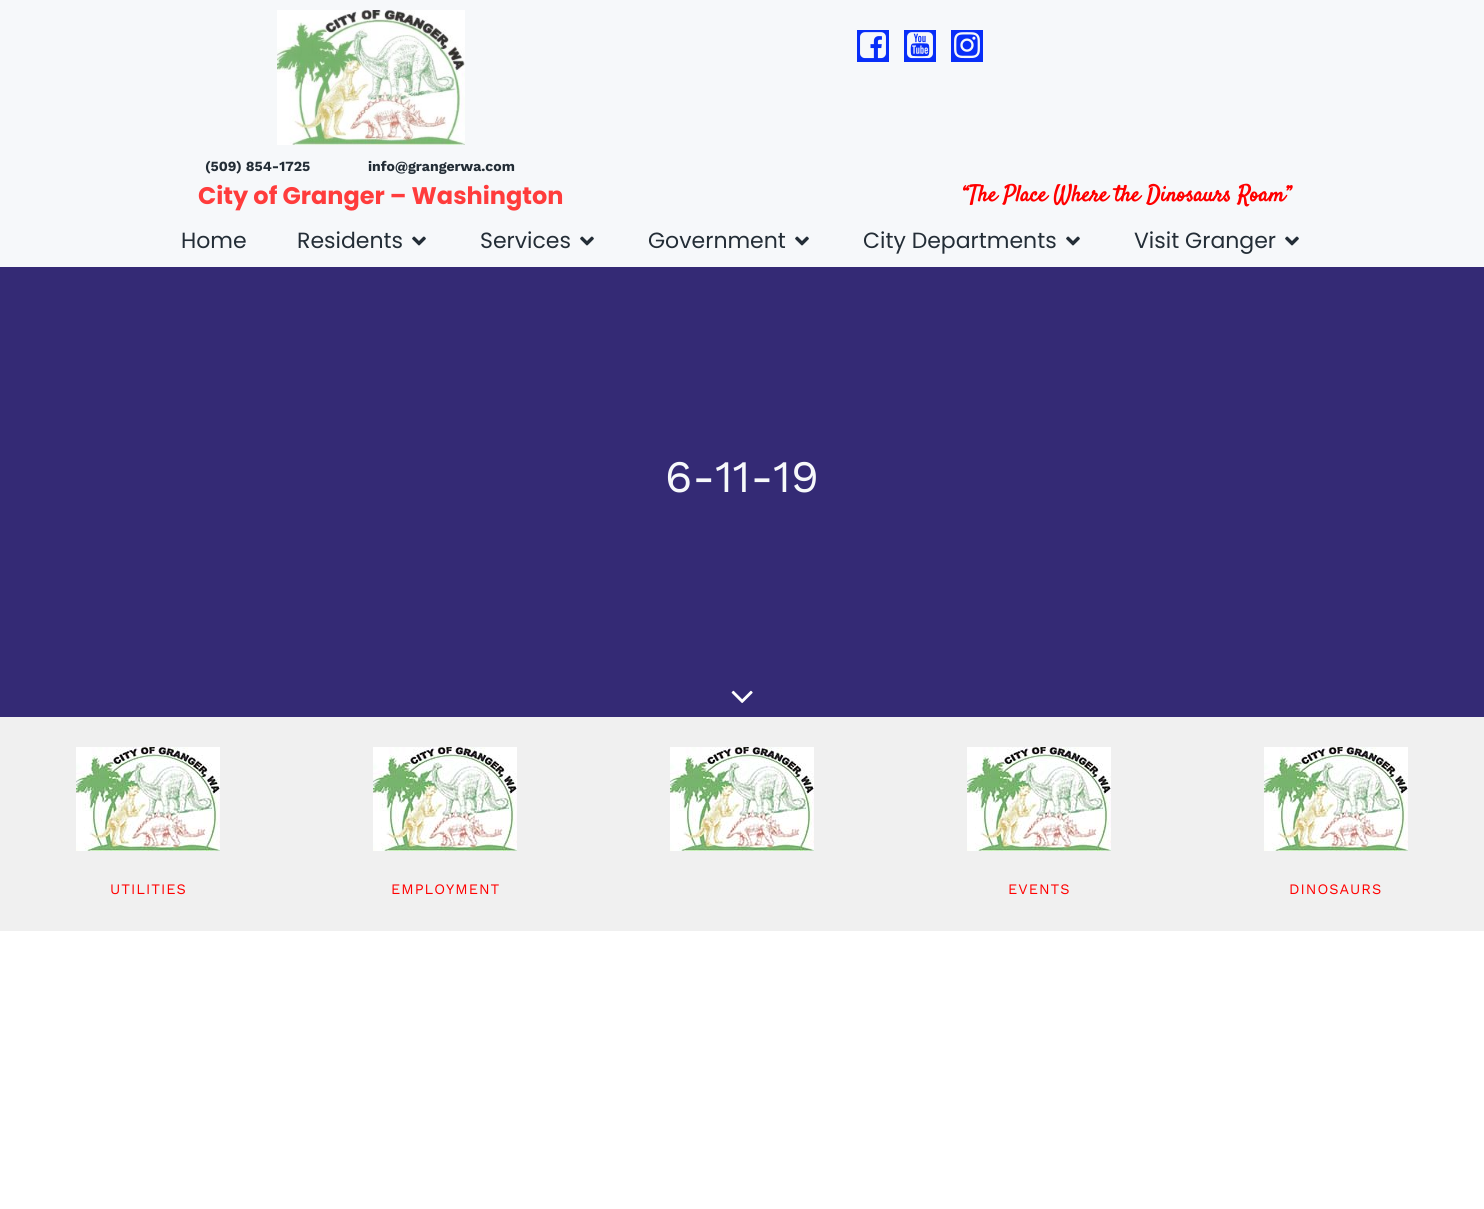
#include <cairo/cairo.h>
#include <math.h>
#include <stddef.h>


static void draw_spaced(cairo_t *cr, double x, double y, const char *s, double letter, double word) {
  cairo_move_to(cr, x, y);
  while (*s) {
    char ch[5] = {0};
    int n = 0;
    do ch[n++] = *s++; while ((*s & 0xC0) == 0x80);
    cairo_show_text(cr, ch);
    cairo_rel_move_to(cr, letter + word * (*ch == ' '), 0);
  }
}

static void draw_image(cairo_t *cr, const char *path, double x, double y, double w, double h) {
  cairo_surface_t *image = cairo_image_surface_create_from_png(path);
  cairo_save(cr);
  cairo_set_source_surface(cr, image, x, y);
  cairo_rectangle(cr, x, y, w, h);
  cairo_fill(cr);
  cairo_restore(cr);
  cairo_surface_destroy(image);
}

static void draw(cairo_t *cr) {
  cairo_set_source_rgb(cr, 1, 1, 1);
  cairo_paint(cr);
  cairo_set_source_rgb(cr, 246 / 255.0, 248 / 255.0, 250 / 255.0);
  cairo_rectangle(cr, 0, 0, 1484, 267);
  cairo_fill(cr);
  cairo_set_source_rgb(cr, 8 / 255.0, 46 / 255.0, 248 / 255.0);
  cairo_rectangle(cr, 857, 30, 32, 32);
  cairo_fill(cr);
  draw_image(cr, "images/1.png", 860, 32, 26, 27);
  cairo_rectangle(cr, 904, 30, 32, 32);
  cairo_fill(cr);
  draw_image(cr, "images/2.png", 907, 32, 26, 27);
  cairo_rectangle(cr, 951, 30, 32, 32);
  cairo_fill(cr);
  draw_image(cr, "images/3.png", 954, 32, 26, 27);
  draw_image(cr, "images/4.png", 277, 10, 188, 135);
  draw_image(cr, "images/5.png", 412, 236, 14, 10);
  draw_image(cr, "images/5.png", 580, 236, 14, 10);
  draw_image(cr, "images/5.png", 795, 236, 14, 10);
  draw_image(cr, "images/5.png", 1066, 236, 14, 10);
  draw_image(cr, "images/5.png", 1285, 236, 14, 10);
  cairo_set_source_rgb(cr, 52 / 255.0, 42 / 255.0, 117 / 255.0);
  cairo_rectangle(cr, 0, 267, 1484, 450);
  cairo_fill(cr);
  draw_image(cr, "images/6.png", 731, 690, 22, 13);
  cairo_set_source_rgb(cr, 240 / 255.0, 240 / 255.0, 240 / 255.0);
  cairo_rectangle(cr, 0, 717, 1484, 214);
  cairo_fill(cr);
  draw_image(cr, "images/7.png", 670, 747, 144, 104);
  draw_image(cr, "images/7.png", 76, 747, 144, 104);
  draw_image(cr, "images/7.png", 373, 747, 144, 104);
  draw_image(cr, "images/7.png", 967, 747, 144, 104);
  draw_image(cr, "images/7.png", 1264, 747, 144, 104);
  cairo_select_font_face(cr, "Work Sans", CAIRO_FONT_SLANT_NORMAL, CAIRO_FONT_WEIGHT_BOLD);
  cairo_set_font_size(cr, 14);
  cairo_set_source_rgb(cr, 35 / 255.0, 45 / 255.0, 54 / 255.0);
  cairo_move_to(cr, 205, 171);
  cairo_show_text(cr, "(509) 854-1725");
  cairo_move_to(cr, 368, 171);
  cairo_show_text(cr, "info@grangerwa.com");
  cairo_select_font_face(cr, "Poppins", CAIRO_FONT_SLANT_NORMAL, CAIRO_FONT_WEIGHT_BOLD);
  cairo_set_font_size(cr, 24);
  cairo_set_source_rgb(cr, 1, 60 / 255.0, 60 / 255.0);
  cairo_move_to(cr, 198, 204);
  cairo_show_text(cr, "City of Granger – Washington");
  cairo_select_font_face(cr, "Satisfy", CAIRO_FONT_SLANT_NORMAL, CAIRO_FONT_WEIGHT_BOLD);
  cairo_set_font_size(cr, 22.5);
  cairo_set_source_rgb(cr, 1, 0, 0);
  cairo_move_to(cr, 962, 201);
  cairo_show_text(cr, "“The Place Where the Dinosaurs Roam”");
  cairo_select_font_face(cr, "Poppins", CAIRO_FONT_SLANT_NORMAL, CAIRO_FONT_WEIGHT_NORMAL);
  cairo_set_font_size(cr, 22);
  cairo_set_source_rgb(cr, 35 / 255.0, 45 / 255.0, 54 / 255.0);
  cairo_move_to(cr, 181, 248);
  cairo_show_text(cr, "Home");
  cairo_move_to(cr, 297, 248);
  cairo_show_text(cr, "Residents");
  cairo_move_to(cr, 480, 248);
  cairo_show_text(cr, "Services");
  cairo_move_to(cr, 648, 248);
  cairo_show_text(cr, "Government");
  cairo_move_to(cr, 863, 248);
  cairo_show_text(cr, "City Departments");
  cairo_move_to(cr, 1134, 248);
  cairo_show_text(cr, "Visit Granger");
  cairo_select_font_face(cr, "Work Sans", CAIRO_FONT_SLANT_NORMAL, CAIRO_FONT_WEIGHT_NORMAL);
  cairo_set_font_size(cr, 45);
  cairo_set_source_rgb(cr, 246 / 255.0, 248 / 255.0, 250 / 255.0);
  cairo_move_to(cr, 665, 492);
  cairo_show_text(cr, "6-11-19");
  cairo_set_font_size(cr, 14.5);
  cairo_set_source_rgb(cr, 1, 0, 0);
  draw_spaced(cr, 110, 894, "UTILITIES", 1, 0);
  draw_spaced(cr, 391, 894, "EMPLOYMENT", 1, 0);
  draw_spaced(cr, 1008, 894, "EVENTS", 1, 0);
  draw_spaced(cr, 1289, 894, "DINOSAURS", 1, 0);
}

int main(void) {
  cairo_surface_t *surface = cairo_image_surface_create(CAIRO_FORMAT_RGB24, 1484, 1209);
  cairo_t *cr = cairo_create(surface);
  cairo_font_options_t *options = cairo_font_options_create();
  cairo_font_options_set_hint_metrics(options, CAIRO_HINT_METRICS_OFF);
  cairo_font_options_set_hint_style(options, CAIRO_HINT_STYLE_NONE);
  cairo_set_font_options(cr, options);
  cairo_set_miter_limit(cr, 4);
  draw(cr);
  cairo_surface_write_to_png(surface, "out.png");
  cairo_font_options_destroy(options);
  cairo_destroy(cr);
  cairo_surface_destroy(surface);
  return 0;
}
